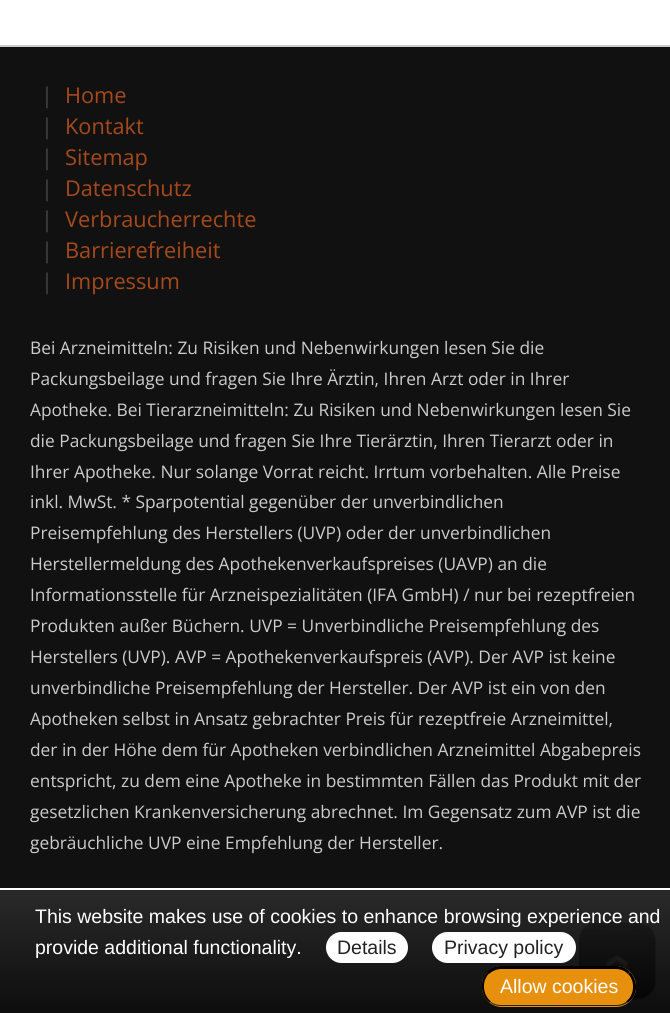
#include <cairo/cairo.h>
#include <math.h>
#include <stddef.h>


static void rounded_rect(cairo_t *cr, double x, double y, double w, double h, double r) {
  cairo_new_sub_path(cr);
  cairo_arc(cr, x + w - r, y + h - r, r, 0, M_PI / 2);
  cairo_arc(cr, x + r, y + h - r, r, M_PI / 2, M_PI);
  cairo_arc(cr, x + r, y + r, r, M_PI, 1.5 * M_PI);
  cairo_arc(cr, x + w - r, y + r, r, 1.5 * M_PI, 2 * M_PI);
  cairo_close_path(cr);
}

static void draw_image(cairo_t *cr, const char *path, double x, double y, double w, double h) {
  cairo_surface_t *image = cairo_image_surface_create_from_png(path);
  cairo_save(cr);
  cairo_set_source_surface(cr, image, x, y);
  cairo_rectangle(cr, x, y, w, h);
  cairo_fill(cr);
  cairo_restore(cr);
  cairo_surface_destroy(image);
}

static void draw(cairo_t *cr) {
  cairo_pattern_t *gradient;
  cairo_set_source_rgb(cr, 1, 1, 1);
  cairo_paint(cr);
  cairo_set_source_rgb(cr, 17 / 255.0, 17 / 255.0, 17 / 255.0);
  cairo_rectangle(cr, 0, 47, 670, 841);
  cairo_fill(cr);
  cairo_set_source_rgb(cr, 204 / 255.0, 204 / 255.0, 204 / 255.0);
  cairo_rectangle(cr, 0, 45, 670, 2);
  cairo_fill(cr);
  draw_image(cr, "images/1.png", 579, 922, 77, 78);
  gradient = cairo_pattern_create_linear(335, 890, 335, 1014);
  cairo_pattern_add_color_stop_rgba(gradient, 0, 30 / 255.0, 30 / 255.0, 30 / 255.0, 0.95);
  cairo_pattern_add_color_stop_rgba(gradient, 1, 0, 0, 0, 0.95);
  cairo_set_source(cr, gradient);
  cairo_pattern_destroy(gradient);
  cairo_rectangle(cr, 0, 890, 670, 123);
  cairo_fill(cr);
  cairo_set_source_rgb(cr, 1, 1, 1);
  rounded_rect(cr, 326, 932, 82, 31, 15.5);
  cairo_fill(cr);
  rounded_rect(cr, 432, 932, 144, 31, 15.5);
  cairo_fill(cr);
  cairo_set_source_rgb(cr, 230 / 255.0, 144 / 255.0, 14 / 255.0);
  rounded_rect(cr, 482, 966, 154, 41, 20);
  cairo_fill(cr);
  cairo_set_source_rgb(cr, 0, 0, 0);
  cairo_new_path(cr);
  cairo_move_to(cr, 501, 966);
  cairo_curve_to(cr, 496, 966, 491, 968, 487, 972);
  cairo_line_to(cr, 489, 974);
  cairo_curve_to(cr, 492, 971, 497, 969, 501, 969);
  cairo_line_to(cr, 616, 969);
  cairo_curve_to(cr, 621, 969, 625, 971, 628, 974);
  cairo_line_to(cr, 630, 972);
  cairo_curve_to(cr, 626, 968, 622, 966, 616, 966);
  cairo_close_path(cr);
  cairo_fill(cr);
  cairo_new_path(cr);
  cairo_move_to(cr, 636, 987);
  cairo_curve_to(cr, 636, 981.5, 634, 976, 630, 972);
  cairo_line_to(cr, 628, 974);
  cairo_curve_to(cr, 635.5, 981, 634.5, 995.5, 626, 1001.5);
  cairo_line_to(cr, 628, 1002.5);
  cairo_curve_to(cr, 633, 999, 636, 993.5, 636, 987);
  cairo_close_path(cr);
  cairo_fill(cr);
  cairo_set_source_rgb(cr, 34 / 255.0, 34 / 255.0, 34 / 255.0);
  cairo_new_path(cr);
  cairo_move_to(cr, 628, 1002);
  cairo_curve_to(cr, 625, 1005, 620, 1006, 616, 1006);
  cairo_line_to(cr, 501, 1006);
  cairo_curve_to(cr, 497, 1006, 493, 1005, 490, 1002);
  cairo_line_to(cr, 491, 1002);
  cairo_curve_to(cr, 494, 1004, 497, 1005, 501, 1005);
  cairo_line_to(cr, 616, 1005);
  cairo_curve_to(cr, 620, 1005, 623, 1004, 626, 1002);
  cairo_close_path(cr);
  cairo_fill(cr);
  cairo_set_source_rgb(cr, 0, 0, 0);
  cairo_new_path(cr);
  cairo_move_to(cr, 487.5, 972);
  cairo_curve_to(cr, 479.5, 980, 480, 995.5, 489.5, 1002.5);
  cairo_line_to(cr, 491, 1001.5);
  cairo_curve_to(cr, 482.5, 995, 481.5, 981, 489, 973.5);
  cairo_close_path(cr);
  cairo_fill(cr);
  cairo_select_font_face(cr, "Open Sans", CAIRO_FONT_SLANT_NORMAL, CAIRO_FONT_WEIGHT_NORMAL);
  cairo_set_font_size(cr, 21.75);
  cairo_set_source_rgb(cr, 68 / 255.0, 68 / 255.0, 68 / 255.0);
  cairo_move_to(cr, 41, 103);
  cairo_show_text(cr, "|");
  cairo_set_source_rgb(cr, 166 / 255.0, 73 / 255.0, 27 / 255.0);
  cairo_move_to(cr, 65, 103);
  cairo_show_text(cr, "Home");
  cairo_set_source_rgb(cr, 68 / 255.0, 68 / 255.0, 68 / 255.0);
  cairo_move_to(cr, 41, 134);
  cairo_show_text(cr, "|");
  cairo_set_source_rgb(cr, 166 / 255.0, 73 / 255.0, 27 / 255.0);
  cairo_move_to(cr, 65, 134);
  cairo_show_text(cr, "Kontakt");
  cairo_set_source_rgb(cr, 68 / 255.0, 68 / 255.0, 68 / 255.0);
  cairo_move_to(cr, 41, 165);
  cairo_show_text(cr, "|");
  cairo_set_source_rgb(cr, 166 / 255.0, 73 / 255.0, 27 / 255.0);
  cairo_move_to(cr, 65, 165);
  cairo_show_text(cr, "Sitemap");
  cairo_set_source_rgb(cr, 68 / 255.0, 68 / 255.0, 68 / 255.0);
  cairo_move_to(cr, 41, 196);
  cairo_show_text(cr, "|");
  cairo_set_source_rgb(cr, 166 / 255.0, 73 / 255.0, 27 / 255.0);
  cairo_move_to(cr, 65, 196);
  cairo_show_text(cr, "Datenschutz");
  cairo_set_source_rgb(cr, 68 / 255.0, 68 / 255.0, 68 / 255.0);
  cairo_move_to(cr, 41, 227);
  cairo_show_text(cr, "|");
  cairo_set_source_rgb(cr, 166 / 255.0, 73 / 255.0, 27 / 255.0);
  cairo_move_to(cr, 65, 227);
  cairo_show_text(cr, "Verbraucherrechte");
  cairo_set_source_rgb(cr, 68 / 255.0, 68 / 255.0, 68 / 255.0);
  cairo_move_to(cr, 41, 258);
  cairo_show_text(cr, "|");
  cairo_set_source_rgb(cr, 166 / 255.0, 73 / 255.0, 27 / 255.0);
  cairo_move_to(cr, 65, 258);
  cairo_show_text(cr, "Barrierefreiheit");
  cairo_set_source_rgb(cr, 68 / 255.0, 68 / 255.0, 68 / 255.0);
  cairo_move_to(cr, 41, 289);
  cairo_show_text(cr, "|");
  cairo_set_source_rgb(cr, 166 / 255.0, 73 / 255.0, 27 / 255.0);
  cairo_move_to(cr, 65, 289);
  cairo_show_text(cr, "Impressum");
  cairo_set_font_size(cr, 17.35);
  cairo_set_source_rgb(cr, 204 / 255.0, 204 / 255.0, 204 / 255.0);
  cairo_move_to(cr, 30, 354);
  cairo_show_text(cr, "Bei Arzneimitteln: Zu Risiken und Nebenwirkungen lesen Sie die");
  cairo_move_to(cr, 30, 385);
  cairo_show_text(cr, "Packungsbeilage und fragen Sie Ihre Ärztin, Ihren Arzt oder in Ihrer");
  cairo_move_to(cr, 30, 416);
  cairo_show_text(cr, "Apotheke. Bei Tierarzneimitteln: Zu Risiken und Nebenwirkungen lesen Sie");
  cairo_move_to(cr, 30, 447);
  cairo_show_text(cr, "die Packungsbeilage und fragen Sie Ihre Tierärztin, Ihren Tierarzt oder in");
  cairo_move_to(cr, 30, 478);
  cairo_show_text(cr, "Ihrer Apotheke. Nur solange Vorrat reicht. Irrtum vorbehalten. Alle Preise");
  cairo_move_to(cr, 30, 508);
  cairo_show_text(cr, "inkl. MwSt. * Sparpotential gegenüber der unverbindlichen");
  cairo_move_to(cr, 30, 539);
  cairo_show_text(cr, "Preisempfehlung des Herstellers (UVP) oder der unverbindlichen");
  cairo_move_to(cr, 30, 570);
  cairo_show_text(cr, "Herstellermeldung des Apothekenverkaufspreises (UAVP) an die");
  cairo_move_to(cr, 30, 601);
  cairo_show_text(cr, "Informationsstelle für Arzneispezialitäten (IFA GmbH) / nur bei rezeptfreien");
  cairo_move_to(cr, 30, 632);
  cairo_show_text(cr, "Produkten außer Büchern. UVP = Unverbindliche Preisempfehlung des");
  cairo_move_to(cr, 30, 663);
  cairo_show_text(cr, "Herstellers (UVP). AVP = Apothekenverkaufspreis (AVP). Der AVP ist keine");
  cairo_move_to(cr, 30, 694);
  cairo_show_text(cr, "unverbindliche Preisempfehlung der Hersteller. Der AVP ist ein von den");
  cairo_move_to(cr, 30, 725);
  cairo_show_text(cr, "Apotheken selbst in Ansatz gebrachter Preis für rezeptfreie Arzneimittel,");
  cairo_move_to(cr, 30, 756);
  cairo_show_text(cr, "der in der Höhe dem für Apotheken verbindlichen Arzneimittel Abgabepreis");
  cairo_move_to(cr, 30, 787);
  cairo_show_text(cr, "entspricht, zu dem eine Apotheke in bestimmten Fällen das Produkt mit der");
  cairo_move_to(cr, 30, 818);
  cairo_show_text(cr, "gesetzlichen Krankenversicherung abrechnet. Im Gegensatz zum AVP ist die");
  cairo_move_to(cr, 30, 849);
  cairo_show_text(cr, "gebräuchliche UVP eine Empfehlung der Hersteller.");
  cairo_select_font_face(cr, "Liberation Sans", CAIRO_FONT_SLANT_NORMAL, CAIRO_FONT_WEIGHT_NORMAL);
  cairo_set_font_size(cr, 19.5);
  cairo_set_source_rgb(cr, 1, 1, 1);
  cairo_move_to(cr, 35, 923);
  cairo_show_text(cr, "This website makes use of cookies to enhance browsing experience and");
  cairo_move_to(cr, 35, 954);
  cairo_show_text(cr, "provide additional functionality.");
  cairo_set_source_rgb(cr, 34 / 255.0, 34 / 255.0, 34 / 255.0);
  cairo_move_to(cr, 337, 954);
  cairo_show_text(cr, "Details");
  cairo_move_to(cr, 444, 954);
  cairo_show_text(cr, "Privacy policy");
  cairo_set_source_rgb(cr, 1, 1, 1);
  cairo_move_to(cr, 500, 993);
  cairo_show_text(cr, "Allow cookies");
}

int main(void) {
  cairo_surface_t *surface = cairo_image_surface_create(CAIRO_FORMAT_RGB24, 670, 1013);
  cairo_t *cr = cairo_create(surface);
  cairo_font_options_t *options = cairo_font_options_create();
  cairo_font_options_set_hint_metrics(options, CAIRO_HINT_METRICS_OFF);
  cairo_font_options_set_hint_style(options, CAIRO_HINT_STYLE_NONE);
  cairo_set_font_options(cr, options);
  cairo_set_miter_limit(cr, 4);
  draw(cr);
  cairo_surface_write_to_png(surface, "out.png");
  cairo_font_options_destroy(options);
  cairo_destroy(cr);
  cairo_surface_destroy(surface);
  return 0;
}
